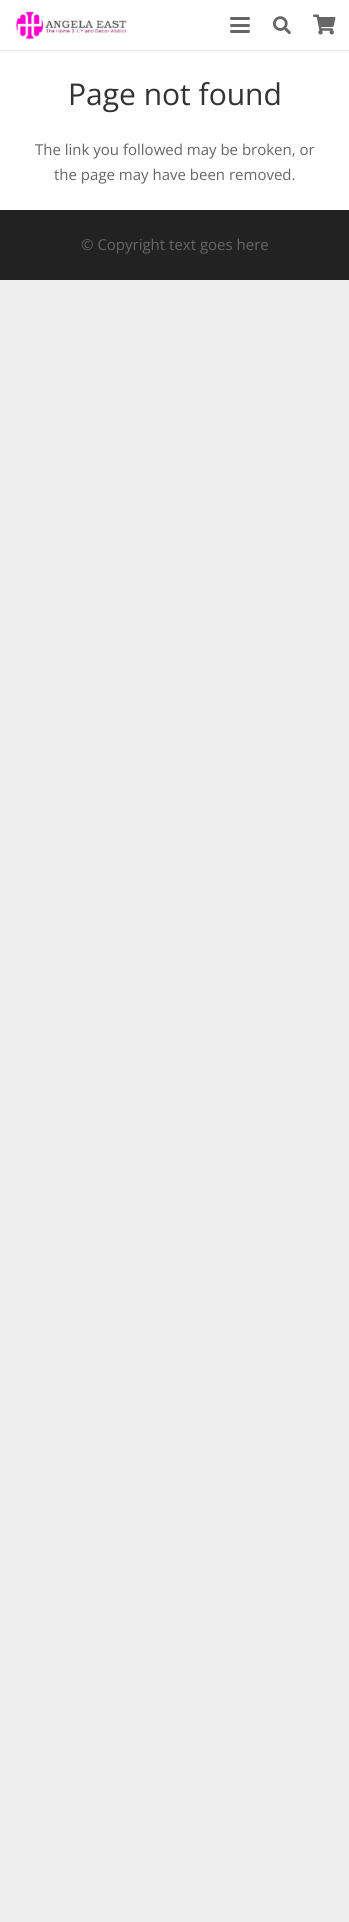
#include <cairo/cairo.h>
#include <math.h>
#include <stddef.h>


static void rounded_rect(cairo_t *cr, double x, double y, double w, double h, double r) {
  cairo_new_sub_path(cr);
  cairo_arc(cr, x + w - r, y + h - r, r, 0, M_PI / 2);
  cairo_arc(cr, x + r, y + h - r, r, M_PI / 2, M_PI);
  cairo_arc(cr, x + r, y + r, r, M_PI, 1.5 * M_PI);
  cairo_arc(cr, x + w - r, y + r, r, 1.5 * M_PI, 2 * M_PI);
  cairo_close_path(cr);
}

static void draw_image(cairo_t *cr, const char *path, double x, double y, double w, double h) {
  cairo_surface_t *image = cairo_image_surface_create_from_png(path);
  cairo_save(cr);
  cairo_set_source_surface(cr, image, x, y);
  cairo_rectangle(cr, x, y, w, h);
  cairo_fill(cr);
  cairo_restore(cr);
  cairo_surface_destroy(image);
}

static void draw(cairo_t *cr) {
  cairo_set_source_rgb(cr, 238 / 255.0, 238 / 255.0, 238 / 255.0);
  cairo_paint(cr);
  cairo_set_source_rgb(cr, 1, 1, 1);
  cairo_rectangle(cr, 0, 0, 349, 210);
  cairo_fill(cr);
  cairo_set_source_rgb(cr, 235 / 255.0, 235 / 255.0, 235 / 255.0);
  cairo_rectangle(cr, 0, 50, 349, 1);
  cairo_fill(cr);
  draw_image(cr, "images/1.png", 15, 11, 112, 29);
  cairo_set_source_rgb(cr, 102 / 255.0, 102 / 255.0, 102 / 255.0);
  rounded_rect(cr, 230, 24, 20, 3, 1.5);
  cairo_fill(cr);
  rounded_rect(cr, 230, 17, 20, 3, 1.5);
  cairo_fill(cr);
  rounded_rect(cr, 230, 30, 20, 3, 1.5);
  cairo_fill(cr);
  draw_image(cr, "images/2.png", 273, 16, 18, 19);
  draw_image(cr, "images/3.png", 313, 14, 23, 21);
  cairo_set_source_rgb(cr, 34 / 255.0, 34 / 255.0, 34 / 255.0);
  cairo_rectangle(cr, 0, 210, 349, 70);
  cairo_fill(cr);
  cairo_select_font_face(cr, "Open Sans", CAIRO_FONT_SLANT_NORMAL, CAIRO_FONT_WEIGHT_NORMAL);
  cairo_set_font_size(cr, 30);
  cairo_set_source_rgb(cr, 51 / 255.0, 51 / 255.0, 51 / 255.0);
  cairo_move_to(cr, 68, 105);
  cairo_show_text(cr, "Page not found");
  cairo_set_font_size(cr, 15);
  cairo_set_source_rgb(cr, 102 / 255.0, 102 / 255.0, 102 / 255.0);
  cairo_move_to(cr, 35, 155);
  cairo_show_text(cr, "The link you followed may be broken, or");
  cairo_move_to(cr, 54, 180);
  cairo_show_text(cr, "the page may have been removed.");
  cairo_move_to(cr, 81, 250);
  cairo_show_text(cr, "© Copyright text goes here");
}

int main(void) {
  cairo_surface_t *surface = cairo_image_surface_create(CAIRO_FORMAT_RGB24, 349, 1922);
  cairo_t *cr = cairo_create(surface);
  cairo_font_options_t *options = cairo_font_options_create();
  cairo_font_options_set_hint_metrics(options, CAIRO_HINT_METRICS_OFF);
  cairo_font_options_set_hint_style(options, CAIRO_HINT_STYLE_NONE);
  cairo_set_font_options(cr, options);
  cairo_set_miter_limit(cr, 4);
  draw(cr);
  cairo_surface_write_to_png(surface, "out.png");
  cairo_font_options_destroy(options);
  cairo_destroy(cr);
  cairo_surface_destroy(surface);
  return 0;
}
